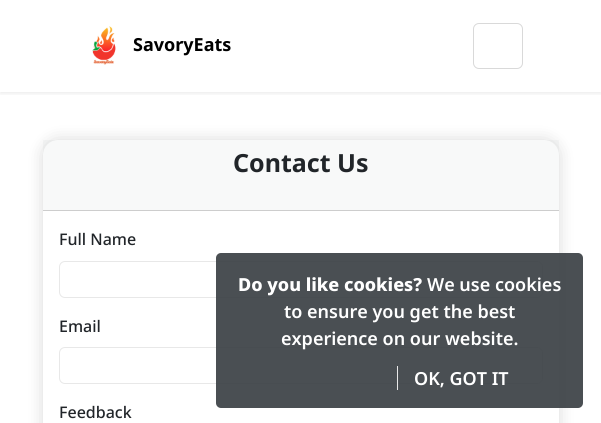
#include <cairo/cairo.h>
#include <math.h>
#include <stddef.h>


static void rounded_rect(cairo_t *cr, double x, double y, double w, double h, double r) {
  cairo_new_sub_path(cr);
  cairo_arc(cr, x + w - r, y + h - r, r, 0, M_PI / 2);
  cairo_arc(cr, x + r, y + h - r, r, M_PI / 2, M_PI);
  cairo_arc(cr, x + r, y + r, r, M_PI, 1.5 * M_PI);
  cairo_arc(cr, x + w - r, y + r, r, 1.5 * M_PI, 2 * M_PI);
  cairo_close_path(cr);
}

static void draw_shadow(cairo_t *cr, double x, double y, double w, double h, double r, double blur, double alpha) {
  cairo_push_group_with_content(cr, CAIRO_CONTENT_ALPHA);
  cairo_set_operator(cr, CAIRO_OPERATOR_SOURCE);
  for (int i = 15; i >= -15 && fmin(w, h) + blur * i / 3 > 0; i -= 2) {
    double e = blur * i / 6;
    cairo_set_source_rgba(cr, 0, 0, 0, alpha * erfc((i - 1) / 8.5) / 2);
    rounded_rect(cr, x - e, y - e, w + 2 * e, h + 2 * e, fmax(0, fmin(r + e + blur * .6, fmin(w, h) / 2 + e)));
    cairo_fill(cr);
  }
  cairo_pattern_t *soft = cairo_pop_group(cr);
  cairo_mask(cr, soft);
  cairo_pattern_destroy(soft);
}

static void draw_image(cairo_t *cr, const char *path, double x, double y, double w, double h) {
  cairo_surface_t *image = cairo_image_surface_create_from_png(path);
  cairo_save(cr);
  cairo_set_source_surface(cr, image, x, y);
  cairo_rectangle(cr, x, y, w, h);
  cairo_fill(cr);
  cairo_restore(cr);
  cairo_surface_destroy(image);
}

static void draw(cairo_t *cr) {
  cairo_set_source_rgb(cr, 1, 1, 1);
  cairo_paint(cr);
  cairo_save(cr);
  cairo_rectangle(cr, 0, 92, 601, 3);
  cairo_clip(cr);
  cairo_set_source_rgb(cr, 0, 0, 0);
  draw_shadow(cr, 0, 2, 601, 92, 0, 2, 0.07);
  cairo_restore(cr);
  draw_image(cr, "images/1.png", 92, 26, 24, 39);
  rounded_rect(cr, 473.5, 23.5, 49, 45, 5.5);
  cairo_set_source_rgb(cr, 217 / 255.0, 217 / 255.0, 217 / 255.0);
  cairo_set_line_width(cr, 1);
  cairo_stroke(cr);
  cairo_set_source_rgb(cr, 0, 0, 0);
  draw_shadow(cr, 43, 140, 516, 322, 15, 8, 0.15);
  cairo_set_source_rgb(cr, 1, 1, 1);
  rounded_rect(cr, 43, 140, 516, 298, 15);
  cairo_fill(cr);
  cairo_set_source_rgba(cr, 33 / 255.0, 37 / 255.0, 41 / 255.0, 0.03);
  cairo_rectangle(cr, 43, 140, 516, 70);
  cairo_fill(cr);
  cairo_set_source_rgb(cr, 205 / 255.0, 205 / 255.0, 205 / 255.0);
  cairo_rectangle(cr, 43, 210, 516, 1);
  cairo_fill(cr);
  rounded_rect(cr, 59.5, 261.5, 483, 36, 5.5);
  cairo_set_source_rgb(cr, 232 / 255.0, 232 / 255.0, 232 / 255.0);
  cairo_stroke(cr);
  rounded_rect(cr, 59.5, 347.5, 483, 36, 5.5);
  cairo_stroke(cr);
  cairo_set_source_rgba(cr, 59 / 255.0, 64 / 255.0, 69 / 255.0, 0.92);
  rounded_rect(cr, 216, 253, 367, 155, 5);
  cairo_fill(cr);
  cairo_set_source_rgb(cr, 232 / 255.0, 232 / 255.0, 232 / 255.0);
  cairo_rectangle(cr, 397, 366, 1, 24);
  cairo_fill(cr);
  cairo_select_font_face(cr, "Noto Sans", CAIRO_FONT_SLANT_NORMAL, CAIRO_FONT_WEIGHT_BOLD);
  cairo_set_font_size(cr, 18);
  cairo_set_source_rgb(cr, 0, 0, 0);
  cairo_move_to(cr, 133, 51);
  cairo_show_text(cr, "SavoryEats");
  cairo_set_font_size(cr, 25);
  cairo_set_source_rgb(cr, 33 / 255.0, 37 / 255.0, 41 / 255.0);
  cairo_move_to(cr, 233, 172);
  cairo_show_text(cr, "Contact Us");
  cairo_select_font_face(cr, "Noto Sans Medium", CAIRO_FONT_SLANT_NORMAL, CAIRO_FONT_WEIGHT_NORMAL);
  cairo_set_font_size(cr, 16);
  cairo_move_to(cr, 59, 245);
  cairo_show_text(cr, "Full Name");
  cairo_move_to(cr, 59, 332);
  cairo_show_text(cr, "Email");
  cairo_move_to(cr, 59, 418);
  cairo_show_text(cr, "Feedback");
  cairo_select_font_face(cr, "Noto Sans ExtraBold", CAIRO_FONT_SLANT_NORMAL, CAIRO_FONT_WEIGHT_NORMAL);
  cairo_set_font_size(cr, 18);
  cairo_set_source_rgb(cr, 1, 1, 1);
  cairo_move_to(cr, 238, 291);
  cairo_show_text(cr, "Do you like cookies?");
  cairo_select_font_face(cr, "Noto Sans SemiBold", CAIRO_FONT_SLANT_NORMAL, CAIRO_FONT_WEIGHT_NORMAL);
  cairo_move_to(cr, 427, 291);
  cairo_show_text(cr, "We use cookies");
  cairo_move_to(cr, 284, 318);
  cairo_show_text(cr, "to ensure you get the best");
  cairo_move_to(cr, 281, 345);
  cairo_show_text(cr, "experience on our website.");
  cairo_move_to(cr, 414, 385);
  cairo_show_text(cr, "OK, GOT IT");
}

int main(void) {
  cairo_surface_t *surface = cairo_image_surface_create(CAIRO_FORMAT_RGB24, 601, 423);
  cairo_t *cr = cairo_create(surface);
  cairo_font_options_t *options = cairo_font_options_create();
  cairo_font_options_set_hint_metrics(options, CAIRO_HINT_METRICS_OFF);
  cairo_font_options_set_hint_style(options, CAIRO_HINT_STYLE_NONE);
  cairo_set_font_options(cr, options);
  cairo_set_miter_limit(cr, 4);
  draw(cr);
  cairo_surface_write_to_png(surface, "out.png");
  cairo_font_options_destroy(options);
  cairo_destroy(cr);
  cairo_surface_destroy(surface);
  return 0;
}
